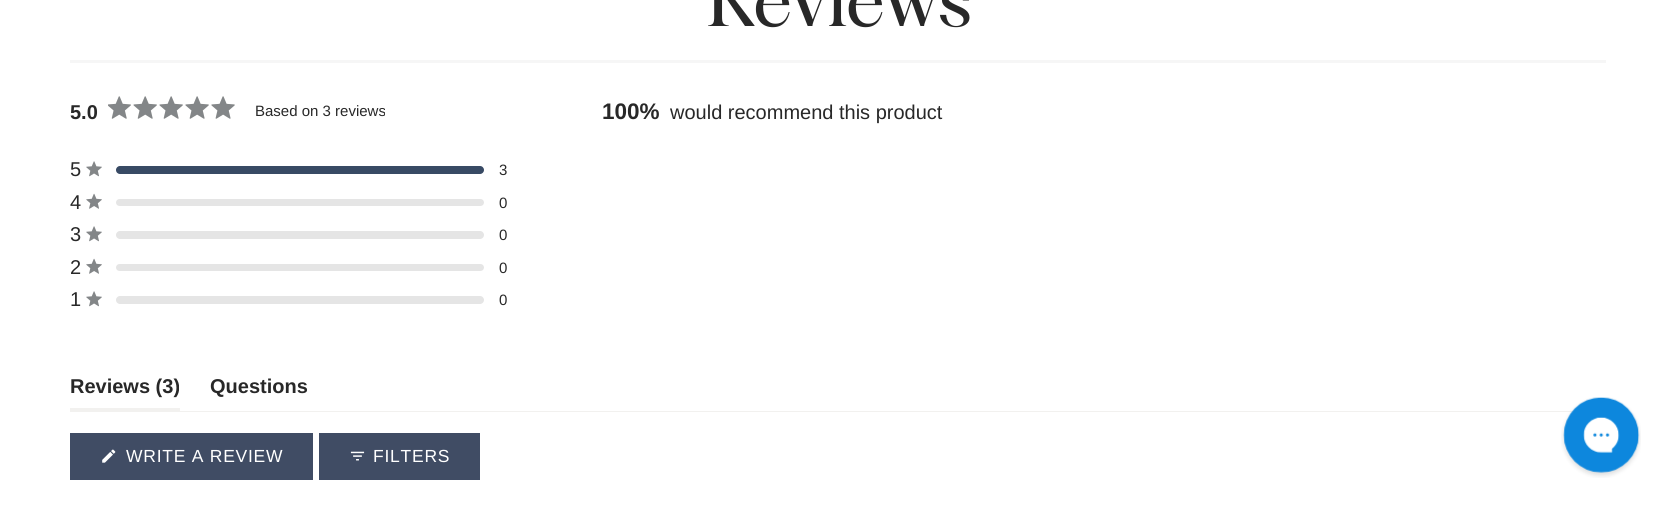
#include <cairo/cairo.h>
#include <math.h>
#include <stddef.h>


static void draw_spaced(cairo_t *cr, double x, double y, const char *s, double letter, double word) {
  cairo_move_to(cr, x, y);
  while (*s) {
    char ch[5] = {0};
    int n = 0;
    do ch[n++] = *s++; while ((*s & 0xC0) == 0x80);
    cairo_show_text(cr, ch);
    cairo_rel_move_to(cr, letter + word * (*ch == ' '), 0);
  }
}

static void rounded_rect(cairo_t *cr, double x, double y, double w, double h, double r) {
  cairo_new_sub_path(cr);
  cairo_arc(cr, x + w - r, y + h - r, r, 0, M_PI / 2);
  cairo_arc(cr, x + r, y + h - r, r, M_PI / 2, M_PI);
  cairo_arc(cr, x + r, y + r, r, M_PI, 1.5 * M_PI);
  cairo_arc(cr, x + w - r, y + r, r, 1.5 * M_PI, 2 * M_PI);
  cairo_close_path(cr);
}

static void draw_image(cairo_t *cr, const char *path, double x, double y, double w, double h) {
  cairo_surface_t *image = cairo_image_surface_create_from_png(path);
  cairo_save(cr);
  cairo_set_source_surface(cr, image, x, y);
  cairo_rectangle(cr, x, y, w, h);
  cairo_fill(cr);
  cairo_restore(cr);
  cairo_surface_destroy(image);
}

static void draw(cairo_t *cr) {
  cairo_set_source_rgb(cr, 1, 1, 1);
  cairo_paint(cr);
  cairo_set_source_rgb(cr, 246 / 255.0, 246 / 255.0, 246 / 255.0);
  cairo_rectangle(cr, 70, 60, 1536, 3);
  cairo_fill(cr);
  draw_image(cr, "images/1.png", 108, 96, 127, 23);
  draw_image(cr, "images/2.png", 108, 96, 127, 23);
  draw_image(cr, "images/3.png", 86, 161, 16, 16);
  cairo_set_source_rgb(cr, 56 / 255.0, 74 / 255.0, 100 / 255.0);
  rounded_rect(cr, 116, 166, 368, 8, 4);
  cairo_fill(cr);
  draw_image(cr, "images/4.png", 86, 193, 16, 16);
  cairo_set_source_rgb(cr, 229 / 255.0, 229 / 255.0, 229 / 255.0);
  rounded_rect(cr, 116, 199, 368, 7, 3.5);
  cairo_fill(cr);
  draw_image(cr, "images/3.png", 86, 226, 16, 16);
  rounded_rect(cr, 116, 231, 368, 8, 4);
  cairo_fill(cr);
  draw_image(cr, "images/4.png", 86, 258, 16, 16);
  rounded_rect(cr, 116, 264, 368, 7, 3.5);
  cairo_fill(cr);
  draw_image(cr, "images/3.png", 86, 291, 16, 16);
  rounded_rect(cr, 116, 296, 368, 8, 4);
  cairo_fill(cr);
  cairo_set_source_rgb(cr, 242 / 255.0, 241 / 255.0, 239 / 255.0);
  cairo_rectangle(cr, 180, 411, 1394, 1);
  cairo_fill(cr);
  cairo_rectangle(cr, 70, 408, 110, 4);
  cairo_fill(cr);
  cairo_set_source_rgb(cr, 64 / 255.0, 76 / 255.0, 100 / 255.0);
  cairo_rectangle(cr, 70, 433, 243, 47);
  cairo_fill(cr);
  draw_image(cr, "images/5.png", 102, 449, 14, 14);
  cairo_rectangle(cr, 319, 433, 161, 47);
  cairo_fill(cr);
  draw_image(cr, "images/6.png", 350, 451, 15, 10);
  draw_image(cr, "images/7.png", 1561, 397, 80, 81);
  cairo_select_font_face(cr, "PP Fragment", CAIRO_FONT_SLANT_NORMAL, CAIRO_FONT_WEIGHT_NORMAL);
  cairo_set_font_size(cr, 70);
  cairo_set_source_rgb(cr, 40 / 255.0, 40 / 255.0, 40 / 255.0);
  draw_spaced(cr, 706, 26, "Reviews", -1.25, 0);
  cairo_select_font_face(cr, "Liberation Sans", CAIRO_FONT_SLANT_NORMAL, CAIRO_FONT_WEIGHT_BOLD);
  cairo_set_font_size(cr, 20);
  cairo_move_to(cr, 70, 119);
  cairo_show_text(cr, "5.0");
  cairo_select_font_face(cr, "Liberation Sans", CAIRO_FONT_SLANT_NORMAL, CAIRO_FONT_WEIGHT_NORMAL);
  cairo_set_font_size(cr, 15);
  cairo_move_to(cr, 255, 116);
  cairo_show_text(cr, "Based on 3 reviews");
  cairo_set_font_size(cr, 20);
  cairo_move_to(cr, 70, 176);
  cairo_show_text(cr, "5");
  cairo_set_font_size(cr, 15);
  cairo_move_to(cr, 499, 175);
  cairo_show_text(cr, "3");
  cairo_set_font_size(cr, 20);
  cairo_move_to(cr, 70, 209);
  cairo_show_text(cr, "4");
  cairo_set_font_size(cr, 15);
  cairo_move_to(cr, 499, 208);
  cairo_show_text(cr, "0");
  cairo_set_font_size(cr, 20);
  cairo_move_to(cr, 70, 241);
  cairo_show_text(cr, "3");
  cairo_set_font_size(cr, 15);
  cairo_move_to(cr, 499, 240);
  cairo_show_text(cr, "0");
  cairo_set_font_size(cr, 20);
  cairo_move_to(cr, 70, 274);
  cairo_show_text(cr, "2");
  cairo_set_font_size(cr, 15);
  cairo_move_to(cr, 499, 273);
  cairo_show_text(cr, "0");
  cairo_set_font_size(cr, 20);
  cairo_move_to(cr, 70, 306);
  cairo_show_text(cr, "1");
  cairo_set_font_size(cr, 15);
  cairo_move_to(cr, 499, 305);
  cairo_show_text(cr, "0");
  cairo_select_font_face(cr, "Liberation Sans", CAIRO_FONT_SLANT_NORMAL, CAIRO_FONT_WEIGHT_BOLD);
  cairo_set_font_size(cr, 22.5);
  cairo_move_to(cr, 602, 119);
  cairo_show_text(cr, "100%");
  cairo_select_font_face(cr, "Liberation Sans", CAIRO_FONT_SLANT_NORMAL, CAIRO_FONT_WEIGHT_NORMAL);
  cairo_set_font_size(cr, 20);
  cairo_move_to(cr, 670, 119);
  cairo_show_text(cr, "would recommend this product");
  cairo_select_font_face(cr, "Liberation Sans", CAIRO_FONT_SLANT_NORMAL, CAIRO_FONT_WEIGHT_BOLD);
  cairo_move_to(cr, 70, 393);
  cairo_show_text(cr, "Reviews (3)");
  cairo_move_to(cr, 210, 393);
  cairo_show_text(cr, "Questions");
  cairo_select_font_face(cr, "Liberation Sans", CAIRO_FONT_SLANT_NORMAL, CAIRO_FONT_WEIGHT_NORMAL);
  cairo_set_font_size(cr, 17.5);
  cairo_set_source_rgb(cr, 1, 1, 1);
  draw_spaced(cr, 126, 462, "WRITE A REVIEW", 0.75, 0);
  draw_spaced(cr, 373, 462, "FILTERS", 0.75, 0);
}

int main(void) {
  cairo_surface_t *surface = cairo_image_surface_create(CAIRO_FORMAT_RGB24, 1676, 506);
  cairo_t *cr = cairo_create(surface);
  cairo_font_options_t *options = cairo_font_options_create();
  cairo_font_options_set_hint_metrics(options, CAIRO_HINT_METRICS_OFF);
  cairo_font_options_set_hint_style(options, CAIRO_HINT_STYLE_NONE);
  cairo_set_font_options(cr, options);
  cairo_set_miter_limit(cr, 4);
  draw(cr);
  cairo_surface_write_to_png(surface, "out.png");
  cairo_font_options_destroy(options);
  cairo_destroy(cr);
  cairo_surface_destroy(surface);
  return 0;
}
